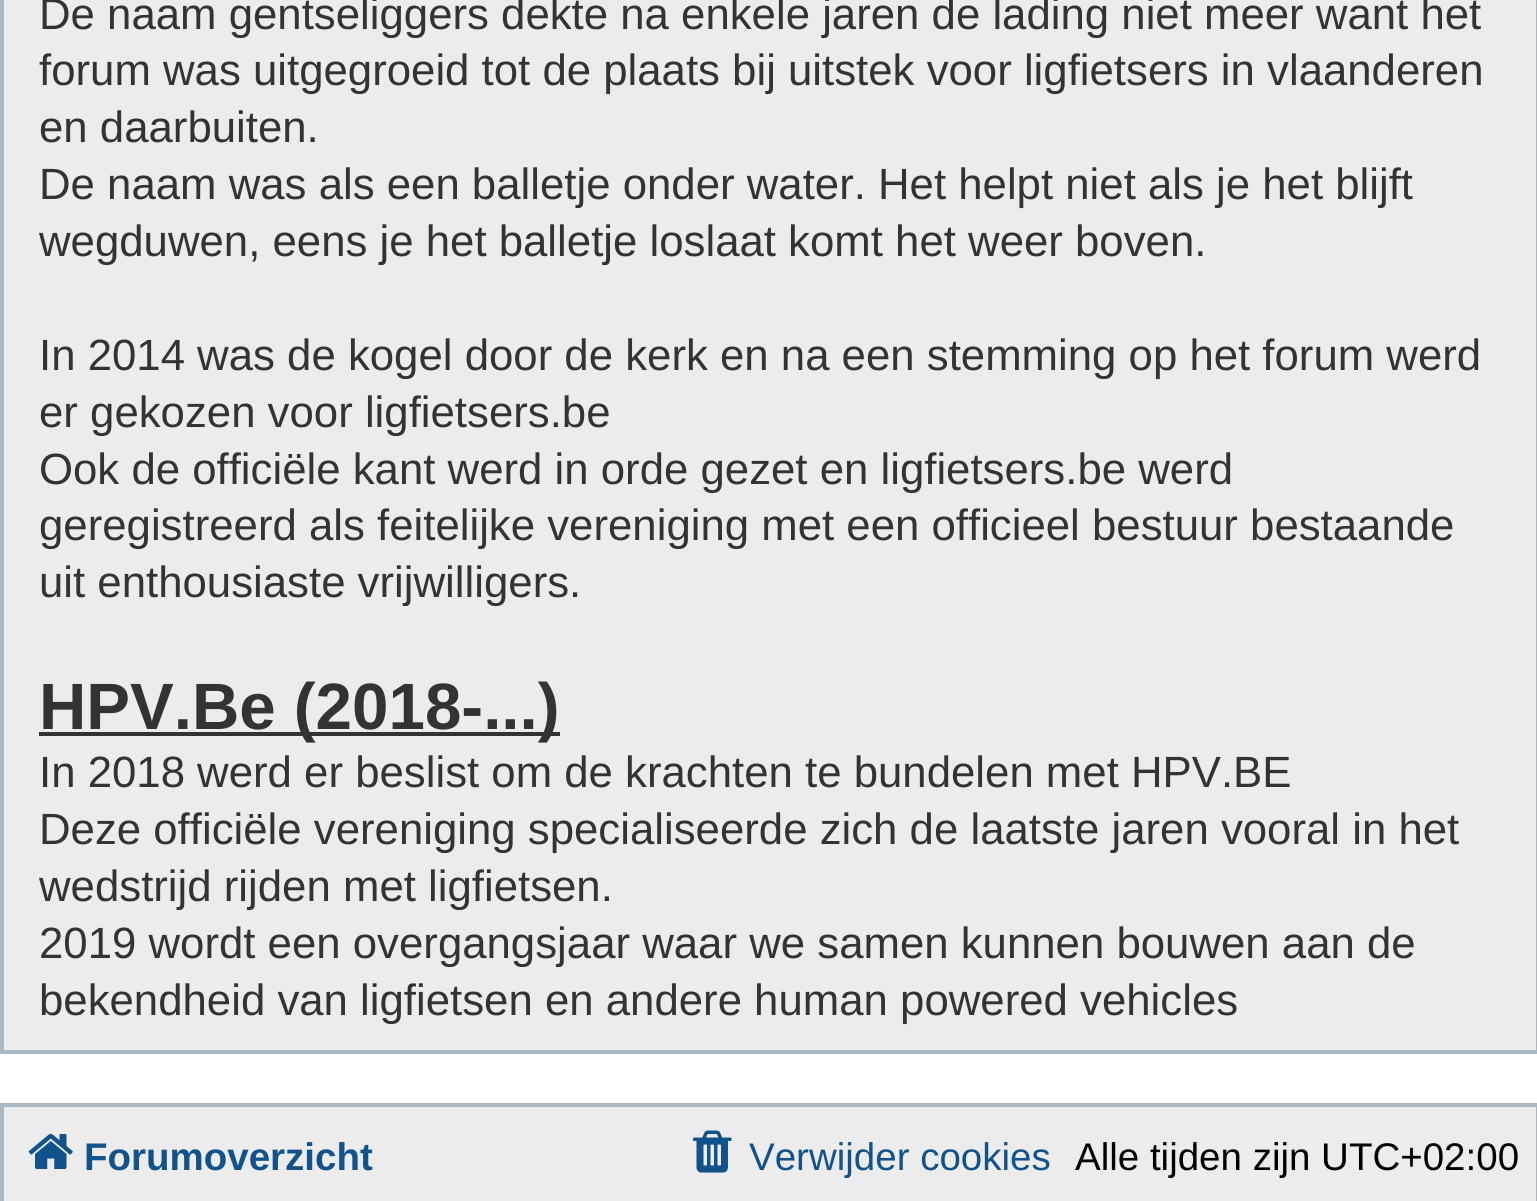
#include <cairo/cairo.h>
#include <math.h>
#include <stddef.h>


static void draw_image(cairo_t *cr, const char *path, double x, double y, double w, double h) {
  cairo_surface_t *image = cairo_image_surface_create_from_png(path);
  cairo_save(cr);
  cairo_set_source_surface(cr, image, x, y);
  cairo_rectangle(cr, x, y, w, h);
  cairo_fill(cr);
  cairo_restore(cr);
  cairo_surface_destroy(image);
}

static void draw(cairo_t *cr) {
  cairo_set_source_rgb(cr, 1, 1, 1);
  cairo_paint(cr);
  cairo_set_source_rgb(cr, 236 / 255.0, 236 / 255.0, 236 / 255.0);
  cairo_rectangle(cr, 2, -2, 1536, 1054);
  cairo_fill_preserve(cr);
  cairo_set_source_rgb(cr, 169 / 255.0, 184 / 255.0, 194 / 255.0);
  cairo_set_line_width(cr, 4);
  cairo_stroke(cr);
  cairo_set_source_rgb(cr, 51 / 255.0, 51 / 255.0, 51 / 255.0);
  cairo_rectangle(cr, 39, 732, 521, 4);
  cairo_fill(cr);
  cairo_set_source_rgb(cr, 236 / 255.0, 236 / 255.0, 236 / 255.0);
  cairo_rectangle(cr, 2, 1105, 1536, 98);
  cairo_fill_preserve(cr);
  cairo_set_source_rgb(cr, 169 / 255.0, 184 / 255.0, 194 / 255.0);
  cairo_stroke(cr);
  draw_image(cr, "images/1.png", 28, 1133, 45, 36);
  draw_image(cr, "images/2.png", 693, 1130, 39, 43);
  cairo_select_font_face(cr, "Liberation Sans", CAIRO_FONT_SLANT_NORMAL, CAIRO_FONT_WEIGHT_NORMAL);
  cairo_set_font_size(cr, 43.75);
  cairo_set_source_rgb(cr, 51 / 255.0, 51 / 255.0, 51 / 255.0);
  cairo_move_to(cr, 39, 29);
  cairo_show_text(cr, "De naam gentseliggers dekte na enkele jaren de lading niet meer want het");
  cairo_move_to(cr, 39, 85);
  cairo_show_text(cr, "forum was uitgegroeid tot de plaats bij uitstek voor ligfietsers in vlaanderen");
  cairo_move_to(cr, 39, 142);
  cairo_show_text(cr, "en daarbuiten.");
  cairo_move_to(cr, 39, 199);
  cairo_show_text(cr, "De naam was als een balletje onder water. Het helpt niet als je het blijft");
  cairo_save(cr);
  cairo_rectangle(cr, 39, 0, 1463, 1033);
  cairo_clip(cr);
  cairo_move_to(cr, 39, 256);
  cairo_show_text(cr, "wegduwen, eens je het balletje loslaat komt het weer boven.");
  cairo_restore(cr);
  cairo_move_to(cr, 39, 370);
  cairo_show_text(cr, "In 2014 was de kogel door de kerk en na een stemming op het forum werd");
  cairo_move_to(cr, 39, 427);
  cairo_show_text(cr, "er gekozen voor ligfietsers.be");
  cairo_move_to(cr, 39, 484);
  cairo_show_text(cr, "Ook de officiële kant werd in orde gezet en ligfietsers.be werd");
  cairo_move_to(cr, 39, 540);
  cairo_show_text(cr, "geregistreerd als feitelijke vereniging met een officieel bestuur bestaande");
  cairo_move_to(cr, 39, 597);
  cairo_show_text(cr, "uit enthousiaste vrijwilligers.");
  cairo_select_font_face(cr, "Liberation Sans", CAIRO_FONT_SLANT_NORMAL, CAIRO_FONT_WEIGHT_BOLD);
  cairo_set_font_size(cr, 65.5);
  cairo_move_to(cr, 39, 729);
  cairo_show_text(cr, "HPV.Be (2018-...)");
  cairo_select_font_face(cr, "Liberation Sans", CAIRO_FONT_SLANT_NORMAL, CAIRO_FONT_WEIGHT_NORMAL);
  cairo_set_font_size(cr, 43.75);
  cairo_move_to(cr, 39, 787);
  cairo_show_text(cr, "In 2018 werd er beslist om de krachten te bundelen met HPV.BE");
  cairo_move_to(cr, 39, 844);
  cairo_show_text(cr, "Deze officiële vereniging specialiseerde zich de laatste jaren vooral in het");
  cairo_save(cr);
  cairo_rectangle(cr, 39, 0, 1463, 1033);
  cairo_clip(cr);
  cairo_move_to(cr, 39, 901);
  cairo_show_text(cr, "wedstrijd rijden met ligfietsen.");
  cairo_restore(cr);
  cairo_move_to(cr, 39, 958);
  cairo_show_text(cr, "2019 wordt een overgangsjaar waar we samen kunnen bouwen aan de");
  cairo_move_to(cr, 39, 1015);
  cairo_show_text(cr, "bekendheid van ligfietsen en andere human powered vehicles");
  cairo_select_font_face(cr, "Liberation Sans", CAIRO_FONT_SLANT_NORMAL, CAIRO_FONT_WEIGHT_BOLD);
  cairo_set_font_size(cr, 38.5);
  cairo_set_source_rgb(cr, 16 / 255.0, 82 / 255.0, 137 / 255.0);
  cairo_move_to(cr, 84, 1170);
  cairo_show_text(cr, "Forumoverzicht");
  cairo_select_font_face(cr, "Liberation Sans", CAIRO_FONT_SLANT_NORMAL, CAIRO_FONT_WEIGHT_NORMAL);
  cairo_move_to(cr, 749, 1170);
  cairo_show_text(cr, "Verwijder cookies");
  cairo_set_source_rgb(cr, 0, 0, 0);
  cairo_move_to(cr, 1075, 1170);
  cairo_show_text(cr, "Alle tijden zijn UTC+02:00");
}

int main(void) {
  cairo_surface_t *surface = cairo_image_surface_create(CAIRO_FORMAT_RGB24, 1537, 1201);
  cairo_t *cr = cairo_create(surface);
  cairo_font_options_t *options = cairo_font_options_create();
  cairo_font_options_set_hint_metrics(options, CAIRO_HINT_METRICS_OFF);
  cairo_font_options_set_hint_style(options, CAIRO_HINT_STYLE_NONE);
  cairo_set_font_options(cr, options);
  cairo_set_miter_limit(cr, 4);
  draw(cr);
  cairo_surface_write_to_png(surface, "out.png");
  cairo_font_options_destroy(options);
  cairo_destroy(cr);
  cairo_surface_destroy(surface);
  return 0;
}
